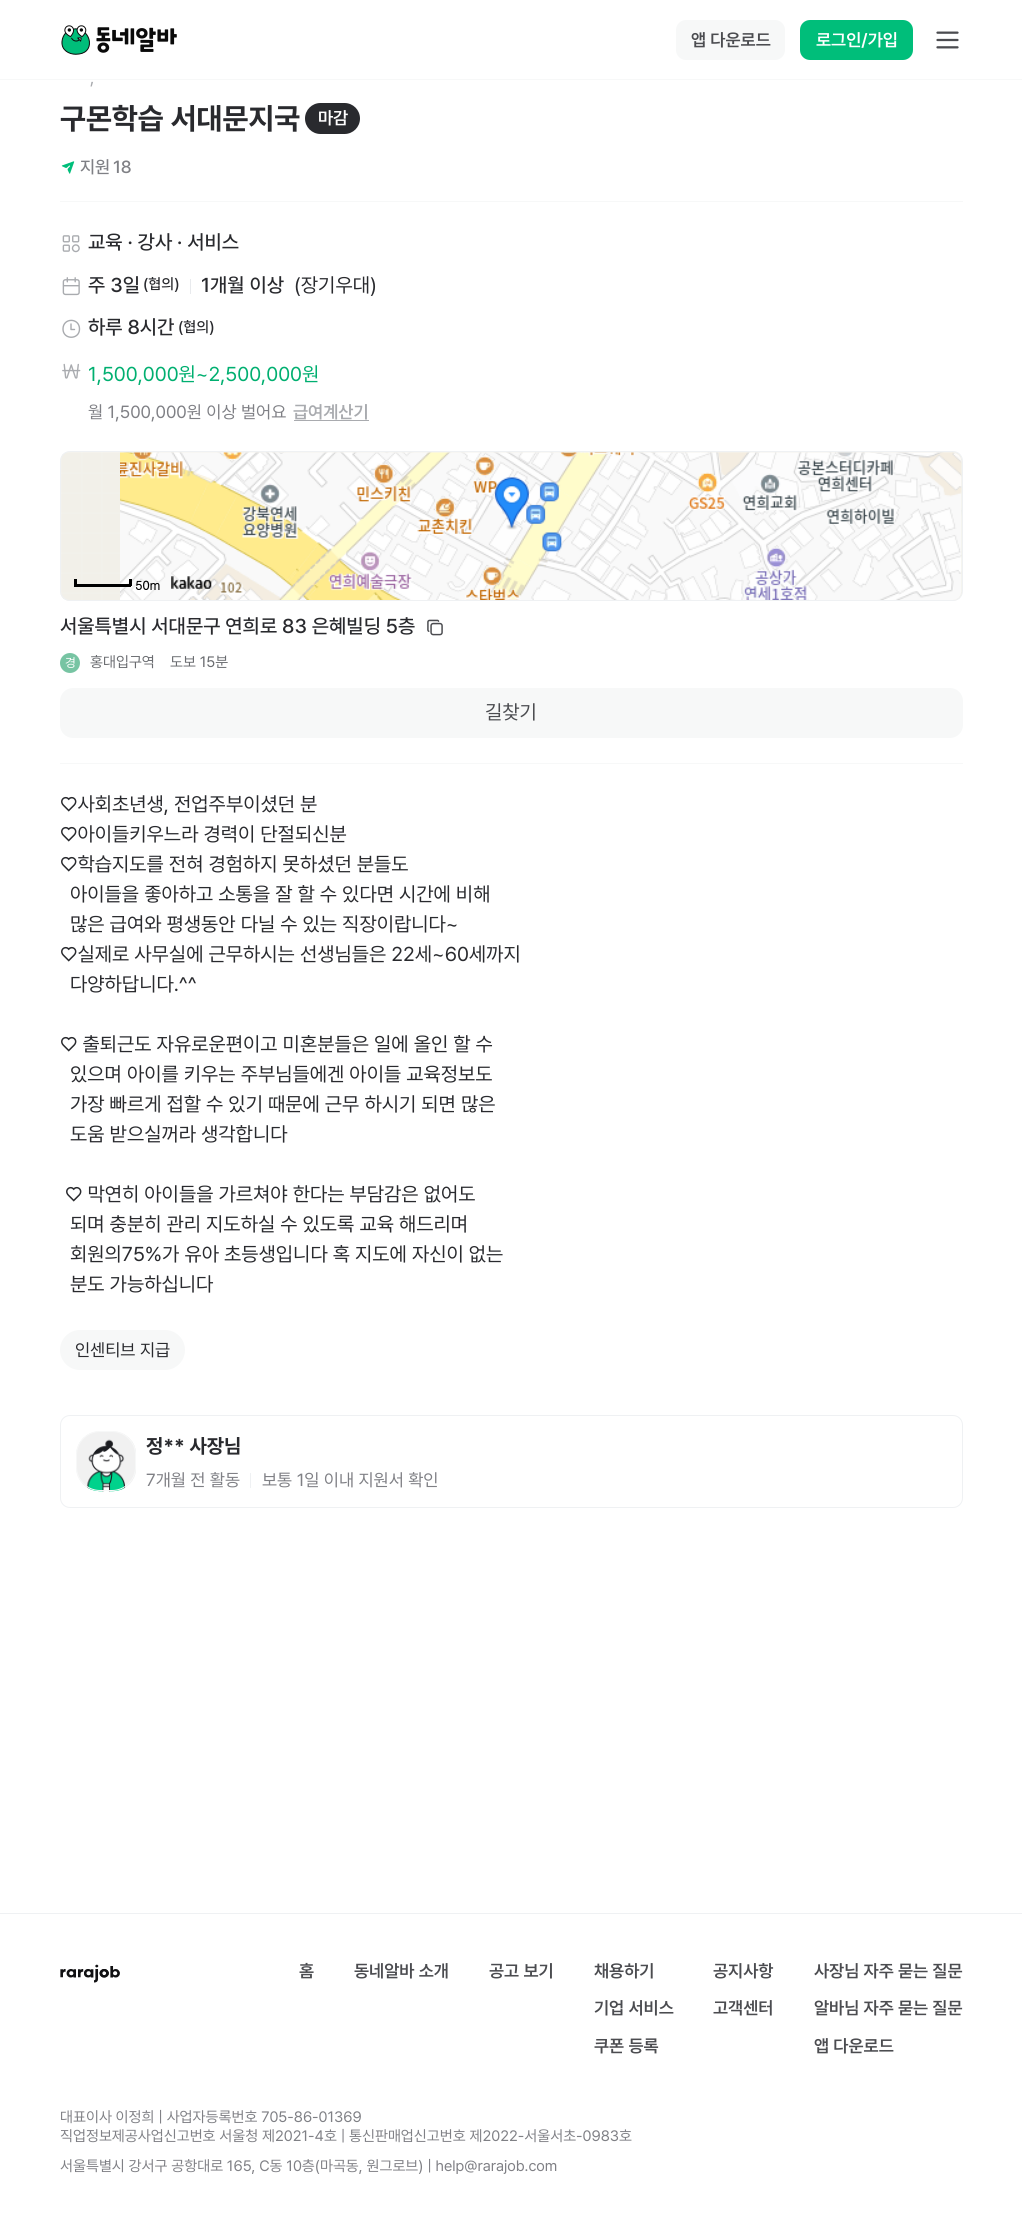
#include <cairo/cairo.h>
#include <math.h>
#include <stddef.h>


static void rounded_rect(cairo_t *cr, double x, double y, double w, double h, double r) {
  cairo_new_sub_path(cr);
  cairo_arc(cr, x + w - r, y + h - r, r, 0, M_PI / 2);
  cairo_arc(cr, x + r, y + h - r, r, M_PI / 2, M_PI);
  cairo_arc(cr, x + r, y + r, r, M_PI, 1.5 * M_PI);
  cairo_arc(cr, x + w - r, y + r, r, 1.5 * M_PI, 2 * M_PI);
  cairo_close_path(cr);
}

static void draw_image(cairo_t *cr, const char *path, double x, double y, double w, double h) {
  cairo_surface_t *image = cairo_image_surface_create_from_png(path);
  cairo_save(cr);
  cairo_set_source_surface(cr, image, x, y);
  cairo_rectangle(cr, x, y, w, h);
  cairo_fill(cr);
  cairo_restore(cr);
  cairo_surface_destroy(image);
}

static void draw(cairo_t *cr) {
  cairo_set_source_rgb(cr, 1, 1, 1);
  cairo_paint(cr);
  cairo_set_source_rgb(cr, 247 / 255.0, 248 / 255.0, 248 / 255.0);
  cairo_rectangle(cr, 0, 79, 1022, 1);
  cairo_fill(cr);
  draw_image(cr, "images/1.png", 61, 25, 116, 30);
  rounded_rect(cr, 676, 20, 109, 40, 10);
  cairo_fill(cr);
  cairo_set_source_rgb(cr, 0, 190 / 255.0, 122 / 255.0);
  rounded_rect(cr, 800, 20, 113, 40, 10);
  cairo_fill(cr);
  draw_image(cr, "images/2.png", 936, 31, 23, 18);
  cairo_set_source_rgb(cr, 41 / 255.0, 42 / 255.0, 46 / 255.0);
  rounded_rect(cr, 305, 103, 55, 31, 15.5);
  cairo_fill(cr);
  draw_image(cr, "images/3.png", 61, 161, 14, 13);
  cairo_set_source_rgb(cr, 247 / 255.0, 248 / 255.0, 248 / 255.0);
  cairo_rectangle(cr, 60, 201, 903, 1);
  cairo_fill(cr);
  draw_image(cr, "images/4.png", 62, 235, 18, 18);
  draw_image(cr, "images/5.png", 62, 277, 18, 19);
  cairo_set_source_rgb(cr, 232 / 255.0, 234 / 255.0, 237 / 255.0);
  cairo_rectangle(cr, 190, 279, 1, 15);
  cairo_fill(cr);
  cairo_new_path(cr);
  cairo_move_to(cr, 74.5, 329.5);
  cairo_line_to(cr, 71, 329.5);
  cairo_line_to(cr, 71, 324);
  cairo_move_to(cr, 63, 329);
  cairo_curve_to(cr, 63, 340, 79.5, 340, 79.5, 329);
  cairo_curve_to(cr, 79.5, 317.5, 63, 317.5, 63, 329);
  cairo_set_source_rgb(cr, 169 / 255.0, 171 / 255.0, 175 / 255.0);
  cairo_set_line_width(cr, 1.4);
  cairo_set_line_cap(cr, CAIRO_LINE_CAP_ROUND);
  cairo_set_line_join(cr, CAIRO_LINE_JOIN_ROUND);
  cairo_stroke(cr);
  draw_image(cr, "images/6.png", 62, 363, 19, 16);
  cairo_rectangle(cr, 294, 420, 75, 1);
  cairo_fill(cr);
  draw_image(cr, "images/7.png", 60, 451, 903, 150);
  rounded_rect(cr, 60.5, 451.5, 902, 149, 9.5);
  cairo_set_source_rgb(cr, 239 / 255.0, 241 / 255.0, 243 / 255.0);
  cairo_set_line_width(cr, 1);
  cairo_set_line_cap(cr, CAIRO_LINE_CAP_BUTT);
  cairo_set_line_join(cr, CAIRO_LINE_JOIN_MITER);
  cairo_stroke(cr);
  draw_image(cr, "images/8.png", 120, 452, 320, 148);
  draw_image(cr, "images/9.png", 440, 452, 320, 148);
  draw_image(cr, "images/10.png", 760, 452, 202, 148);
  draw_image(cr, "images/11.png", 494, 477, 35, 53);
  cairo_set_source_rgb(cr, 0, 0, 0);
  cairo_rectangle(cr, 129, 579, 3, 7);
  cairo_fill(cr);
  cairo_rectangle(cr, 74, 584, 57, 3);
  cairo_fill(cr);
  cairo_rectangle(cr, 74, 579, 3, 7);
  cairo_fill(cr);
  draw_image(cr, "images/12.png", 171, 576, 41, 13);
  draw_image(cr, "images/13.png", 427, 619, 16, 17);
  cairo_set_source_rgb(cr, 119 / 255.0, 196 / 255.0, 163 / 255.0);
  cairo_arc(cr, 70, 663, 10, 0, 2 * M_PI);
  cairo_fill(cr);
  cairo_set_source_rgb(cr, 247 / 255.0, 248 / 255.0, 248 / 255.0);
  rounded_rect(cr, 60, 688, 903, 50, 13);
  cairo_fill(cr);
  cairo_rectangle(cr, 60, 763, 903, 1);
  cairo_fill(cr);
  rounded_rect(cr, 60, 1330, 125, 40, 20);
  cairo_fill(cr);
  rounded_rect(cr, 60.5, 1415.5, 902, 92, 9.5);
  cairo_set_source_rgb(cr, 239 / 255.0, 241 / 255.0, 243 / 255.0);
  cairo_stroke(cr);
  draw_image(cr, "images/14.png", 76, 1431, 60, 61);
  rounded_rect(cr, 76.5, 1431.5, 59, 59, 23.5);
  cairo_set_source_rgb(cr, 247 / 255.0, 248 / 255.0, 248 / 255.0);
  cairo_stroke(cr);
  cairo_set_source_rgb(cr, 239 / 255.0, 241 / 255.0, 243 / 255.0);
  cairo_rectangle(cr, 250, 1473, 1, 15);
  cairo_fill(cr);
  cairo_rectangle(cr, 0, 1913, 1022, 1);
  cairo_fill(cr);
  draw_image(cr, "images/15.png", 60, 1964, 60, 19);
  cairo_select_font_face(cr, "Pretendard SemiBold", CAIRO_FONT_SLANT_NORMAL, CAIRO_FONT_WEIGHT_NORMAL);
  cairo_set_font_size(cr, 17.5);
  cairo_set_source_rgb(cr, 75 / 255.0, 76 / 255.0, 80 / 255.0);
  cairo_move_to(cr, 691, 46);
  cairo_show_text(cr, "앱 다운로드");
  cairo_set_source_rgb(cr, 1, 1, 1);
  cairo_move_to(cr, 816, 46);
  cairo_show_text(cr, "로그인/가입");
  cairo_select_font_face(cr, "Pretendard", CAIRO_FONT_SLANT_NORMAL, CAIRO_FONT_WEIGHT_NORMAL);
  cairo_set_source_rgb(cr, 169 / 255.0, 171 / 255.0, 175 / 255.0);
  cairo_move_to(cr, 90, 83);
  cairo_show_text(cr, ",");
  cairo_select_font_face(cr, "Pretendard", CAIRO_FONT_SLANT_NORMAL, CAIRO_FONT_WEIGHT_BOLD);
  cairo_set_font_size(cr, 30);
  cairo_set_source_rgb(cr, 41 / 255.0, 42 / 255.0, 46 / 255.0);
  cairo_move_to(cr, 60, 129);
  cairo_show_text(cr, "구몬학습 서대문지국");
  cairo_select_font_face(cr, "Pretendard SemiBold", CAIRO_FONT_SLANT_NORMAL, CAIRO_FONT_WEIGHT_NORMAL);
  cairo_set_font_size(cr, 17.5);
  cairo_set_source_rgb(cr, 1, 1, 1);
  cairo_move_to(cr, 318, 124);
  cairo_show_text(cr, "마감");
  cairo_select_font_face(cr, "Pretendard Medium", CAIRO_FONT_SLANT_NORMAL, CAIRO_FONT_WEIGHT_NORMAL);
  cairo_set_source_rgb(cr, 127 / 255.0, 128 / 255.0, 133 / 255.0);
  cairo_move_to(cr, 80, 173);
  cairo_show_text(cr, "지원");
  cairo_move_to(cr, 113, 173);
  cairo_show_text(cr, "18");
  cairo_set_font_size(cr, 20);
  cairo_set_source_rgb(cr, 41 / 255.0, 42 / 255.0, 46 / 255.0);
  cairo_move_to(cr, 88, 249);
  cairo_show_text(cr, "교육 · 강사 · 서비스");
  cairo_move_to(cr, 88, 292);
  cairo_show_text(cr, "주 3일");
  cairo_set_font_size(cr, 15);
  cairo_move_to(cr, 143, 289);
  cairo_show_text(cr, "(협의)");
  cairo_set_font_size(cr, 20);
  cairo_move_to(cr, 201, 292);
  cairo_show_text(cr, "1개월 이상");
  cairo_select_font_face(cr, "Pretendard", CAIRO_FONT_SLANT_NORMAL, CAIRO_FONT_WEIGHT_NORMAL);
  cairo_move_to(cr, 294, 292);
  cairo_show_text(cr, "(장기우대)");
  cairo_select_font_face(cr, "Pretendard Medium", CAIRO_FONT_SLANT_NORMAL, CAIRO_FONT_WEIGHT_NORMAL);
  cairo_move_to(cr, 88, 334);
  cairo_show_text(cr, "하루 8시간");
  cairo_set_font_size(cr, 15);
  cairo_move_to(cr, 178, 332);
  cairo_show_text(cr, "(협의)");
  cairo_select_font_face(cr, "Pretendard", CAIRO_FONT_SLANT_NORMAL, CAIRO_FONT_WEIGHT_NORMAL);
  cairo_set_font_size(cr, 20);
  cairo_set_source_rgb(cr, 0, 175 / 255.0, 112 / 255.0);
  cairo_move_to(cr, 88, 381);
  cairo_show_text(cr, "1,500,000원~2,500,000원");
  cairo_set_font_size(cr, 17.5);
  cairo_set_source_rgb(cr, 127 / 255.0, 128 / 255.0, 133 / 255.0);
  cairo_move_to(cr, 88, 418);
  cairo_show_text(cr, "월 1,500,000원 이상 벌어요");
  cairo_select_font_face(cr, "Pretendard SemiBold", CAIRO_FONT_SLANT_NORMAL, CAIRO_FONT_WEIGHT_NORMAL);
  cairo_set_source_rgb(cr, 169 / 255.0, 171 / 255.0, 175 / 255.0);
  cairo_move_to(cr, 293, 418);
  cairo_show_text(cr, "급여계산기");
  cairo_select_font_face(cr, "Dotum", CAIRO_FONT_SLANT_NORMAL, CAIRO_FONT_WEIGHT_BOLD);
  cairo_set_font_size(cr, 12.5);
  cairo_set_source_rgb(cr, 0, 0, 0);
  cairo_move_to(cr, 135, 590);
  cairo_show_text(cr, "50m");
  cairo_select_font_face(cr, "Pretendard Medium", CAIRO_FONT_SLANT_NORMAL, CAIRO_FONT_WEIGHT_NORMAL);
  cairo_set_font_size(cr, 20);
  cairo_set_source_rgb(cr, 41 / 255.0, 42 / 255.0, 46 / 255.0);
  cairo_move_to(cr, 60, 633);
  cairo_show_text(cr, "서울특별시 서대문구 연희로 83 은혜빌딩 5층");
  cairo_select_font_face(cr, "Pretendard", CAIRO_FONT_SLANT_NORMAL, CAIRO_FONT_WEIGHT_NORMAL);
  cairo_set_font_size(cr, 12.5);
  cairo_set_source_rgb(cr, 1, 1, 1);
  cairo_move_to(cr, 65, 667);
  cairo_show_text(cr, "경");
  cairo_set_font_size(cr, 15);
  cairo_set_source_rgb(cr, 106 / 255.0, 108 / 255.0, 112 / 255.0);
  cairo_move_to(cr, 90, 667);
  cairo_show_text(cr, "홍대입구역");
  cairo_move_to(cr, 170, 667);
  cairo_show_text(cr, "도보 15분");
  cairo_set_font_size(cr, 20);
  cairo_set_source_rgb(cr, 75 / 255.0, 76 / 255.0, 80 / 255.0);
  cairo_move_to(cr, 485, 719);
  cairo_show_text(cr, "길찾기");
  cairo_set_source_rgb(cr, 41 / 255.0, 42 / 255.0, 46 / 255.0);
  cairo_move_to(cr, 60, 811);
  cairo_show_text(cr, "♡사회초년생, 전업주부이셨던 분");
  cairo_move_to(cr, 60, 841);
  cairo_show_text(cr, "♡아이들키우느라 경력이 단절되신분");
  cairo_move_to(cr, 60, 871);
  cairo_show_text(cr, "♡학습지도를 전혀 경험하지 못하셨던 분들도");
  cairo_move_to(cr, 70, 901);
  cairo_show_text(cr, "아이들을 좋아하고 소통을 잘 할 수 있다면 시간에 비해");
  cairo_move_to(cr, 70, 931);
  cairo_show_text(cr, "많은 급여와 평생동안 다닐 수 있는 직장이랍니다~");
  cairo_move_to(cr, 60, 961);
  cairo_show_text(cr, "♡실제로 사무실에 근무하시는 선생님들은 22세~60세까지");
  cairo_move_to(cr, 70, 991);
  cairo_show_text(cr, "다양하답니다.^^");
  cairo_move_to(cr, 60, 1051);
  cairo_show_text(cr, "♡ 출퇴근도 자유로운편이고 미혼분들은 일에 올인 할 수");
  cairo_move_to(cr, 70, 1081);
  cairo_show_text(cr, "있으며 아이를 키우는 주부님들에겐 아이들 교육정보도");
  cairo_move_to(cr, 70, 1111);
  cairo_show_text(cr, "가장 빠르게 접할 수 있기 때문에 근무 하시기 되면 많은");
  cairo_move_to(cr, 70, 1141);
  cairo_show_text(cr, "도움 받으실꺼라 생각합니다");
  cairo_move_to(cr, 65, 1201);
  cairo_show_text(cr, "♡ 막연히 아이들을 가르쳐야 한다는 부담감은 없어도");
  cairo_move_to(cr, 70, 1231);
  cairo_show_text(cr, "되며 충분히 관리 지도하실 수 있도록 교육 해드리며");
  cairo_move_to(cr, 70, 1261);
  cairo_show_text(cr, "회원의75%가 유아 초등생입니다 혹 지도에 자신이 없는");
  cairo_move_to(cr, 70, 1291);
  cairo_show_text(cr, "분도 가능하십니다");
  cairo_set_font_size(cr, 17.5);
  cairo_move_to(cr, 75, 1356);
  cairo_show_text(cr, "인센티브 지급");
  cairo_select_font_face(cr, "Pretendard", CAIRO_FONT_SLANT_NORMAL, CAIRO_FONT_WEIGHT_BOLD);
  cairo_set_font_size(cr, 20);
  cairo_move_to(cr, 146, 1453);
  cairo_show_text(cr, "정** 사장님");
  cairo_select_font_face(cr, "Pretendard", CAIRO_FONT_SLANT_NORMAL, CAIRO_FONT_WEIGHT_NORMAL);
  cairo_set_font_size(cr, 17.5);
  cairo_set_source_rgb(cr, 127 / 255.0, 128 / 255.0, 133 / 255.0);
  cairo_move_to(cr, 146, 1486);
  cairo_show_text(cr, "7개월 전 활동");
  cairo_move_to(cr, 262, 1486);
  cairo_show_text(cr, "보통 1일 이내 지원서 확인");
  cairo_select_font_face(cr, "Pretendard SemiBold", CAIRO_FONT_SLANT_NORMAL, CAIRO_FONT_WEIGHT_NORMAL);
  cairo_set_source_rgb(cr, 75 / 255.0, 76 / 255.0, 80 / 255.0);
  cairo_move_to(cr, 299, 1977);
  cairo_show_text(cr, "홈");
  cairo_move_to(cr, 354, 1977);
  cairo_show_text(cr, "동네알바 소개");
  cairo_move_to(cr, 489, 1977);
  cairo_show_text(cr, "공고 보기");
  cairo_move_to(cr, 594, 1977);
  cairo_show_text(cr, "채용하기");
  cairo_move_to(cr, 594, 2014);
  cairo_show_text(cr, "기업 서비스");
  cairo_move_to(cr, 594, 2052);
  cairo_show_text(cr, "쿠폰 등록");
  cairo_move_to(cr, 713, 1977);
  cairo_show_text(cr, "공지사항");
  cairo_move_to(cr, 713, 2014);
  cairo_show_text(cr, "고객센터");
  cairo_move_to(cr, 814, 1977);
  cairo_show_text(cr, "사장님 자주 묻는 질문");
  cairo_move_to(cr, 814, 2014);
  cairo_show_text(cr, "알바님 자주 묻는 질문");
  cairo_move_to(cr, 814, 2052);
  cairo_show_text(cr, "앱 다운로드");
  cairo_select_font_face(cr, "Pretendard", CAIRO_FONT_SLANT_NORMAL, CAIRO_FONT_WEIGHT_NORMAL);
  cairo_set_font_size(cr, 15);
  cairo_set_source_rgb(cr, 127 / 255.0, 128 / 255.0, 133 / 255.0);
  cairo_move_to(cr, 60, 2122);
  cairo_show_text(cr, "대표이사 이정희 | 사업자등록번호 705-86-01369");
  cairo_move_to(cr, 60, 2141);
  cairo_show_text(cr, "직업정보제공사업신고번호 서울청 제2021-4호 | 통신판매업신고번호 제2022-서울서초-0983호");
  cairo_move_to(cr, 60, 2171);
  cairo_show_text(cr, "서울특별시 강서구 공항대로 165, C동 10층(마곡동, 원그로브) | help@rarajob.com");
}

int main(void) {
  cairo_surface_t *surface = cairo_image_surface_create(CAIRO_FORMAT_RGB24, 1022, 2227);
  cairo_t *cr = cairo_create(surface);
  cairo_font_options_t *options = cairo_font_options_create();
  cairo_font_options_set_hint_metrics(options, CAIRO_HINT_METRICS_OFF);
  cairo_font_options_set_hint_style(options, CAIRO_HINT_STYLE_NONE);
  cairo_set_font_options(cr, options);
  cairo_set_miter_limit(cr, 4);
  draw(cr);
  cairo_surface_write_to_png(surface, "out.png");
  cairo_font_options_destroy(options);
  cairo_destroy(cr);
  cairo_surface_destroy(surface);
  return 0;
}
